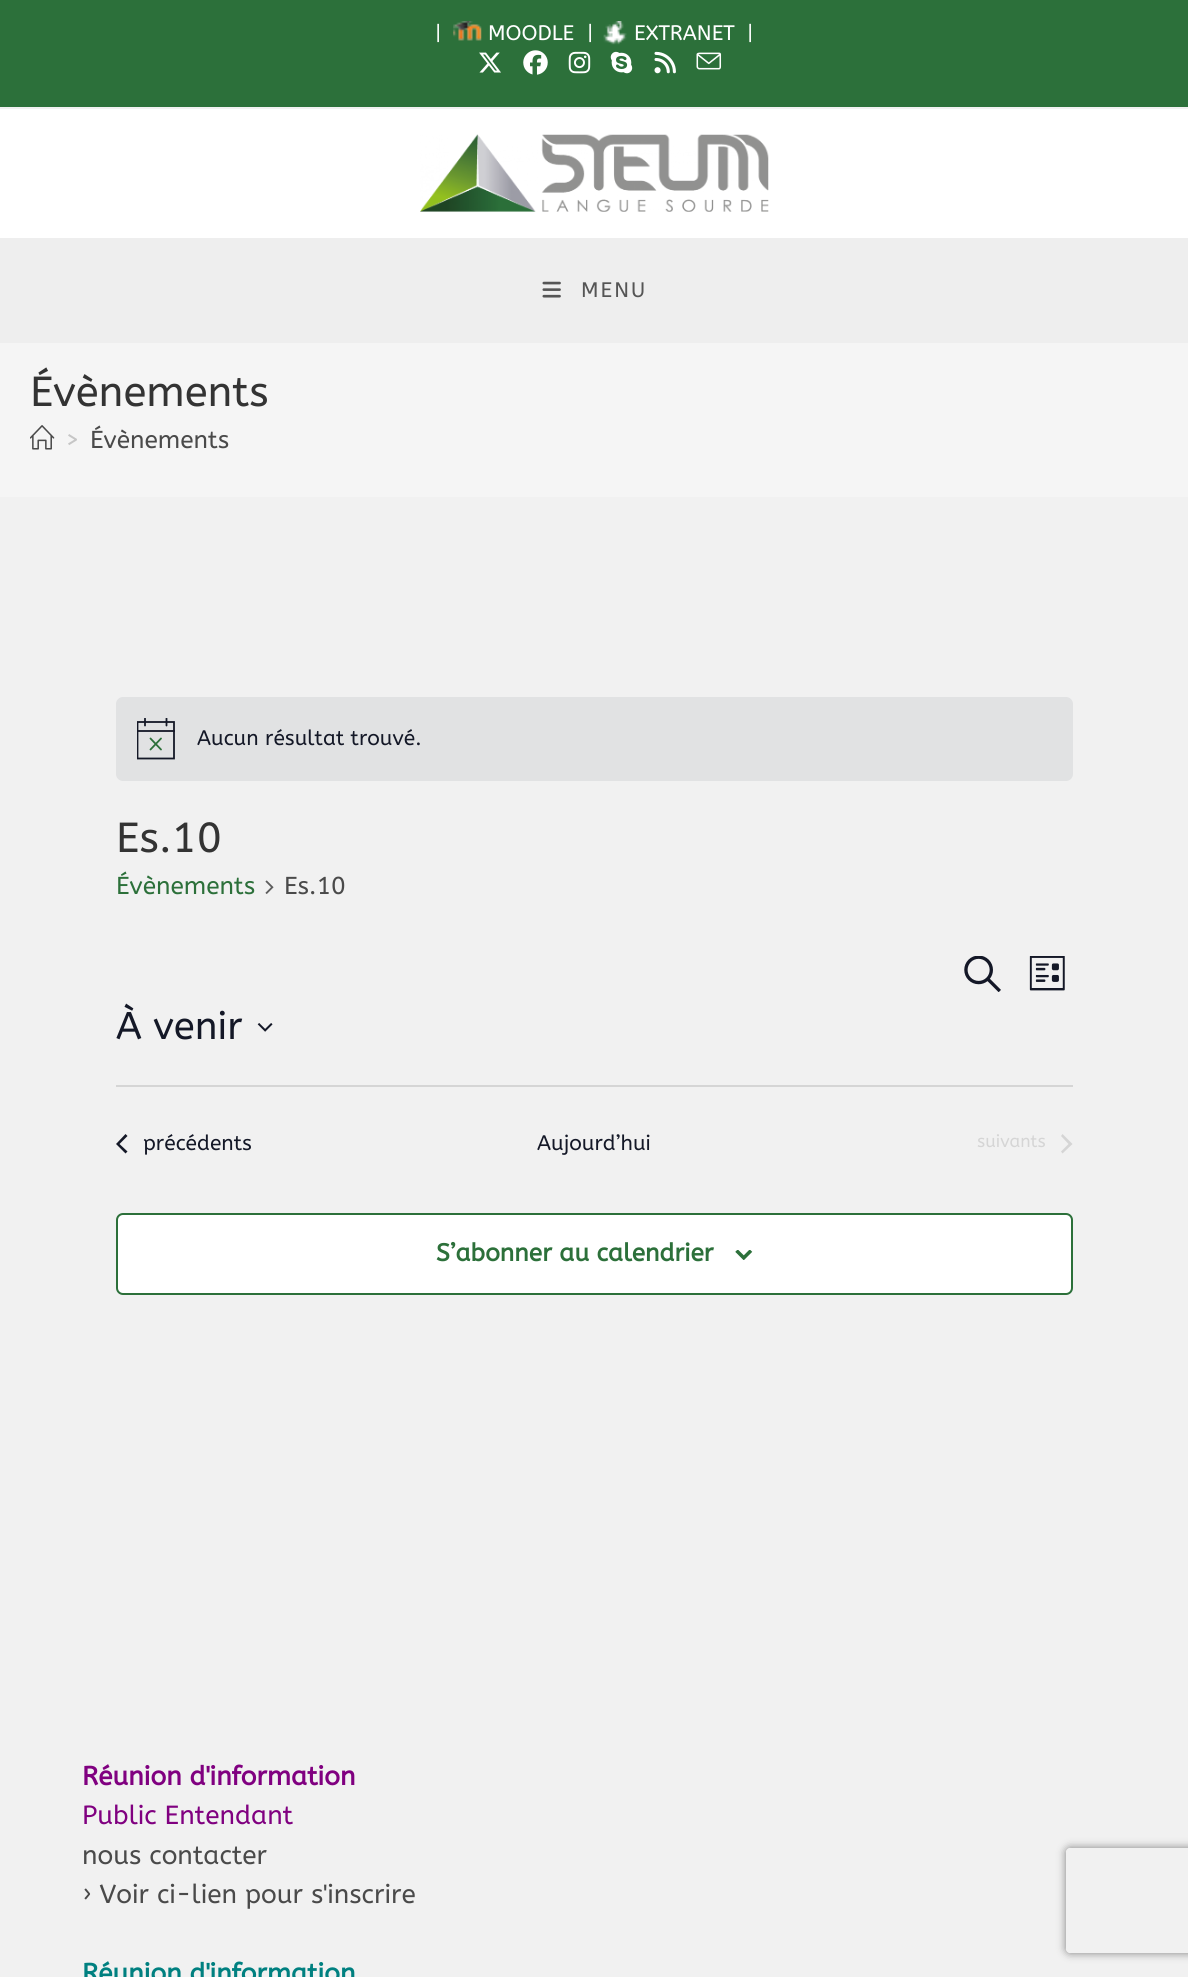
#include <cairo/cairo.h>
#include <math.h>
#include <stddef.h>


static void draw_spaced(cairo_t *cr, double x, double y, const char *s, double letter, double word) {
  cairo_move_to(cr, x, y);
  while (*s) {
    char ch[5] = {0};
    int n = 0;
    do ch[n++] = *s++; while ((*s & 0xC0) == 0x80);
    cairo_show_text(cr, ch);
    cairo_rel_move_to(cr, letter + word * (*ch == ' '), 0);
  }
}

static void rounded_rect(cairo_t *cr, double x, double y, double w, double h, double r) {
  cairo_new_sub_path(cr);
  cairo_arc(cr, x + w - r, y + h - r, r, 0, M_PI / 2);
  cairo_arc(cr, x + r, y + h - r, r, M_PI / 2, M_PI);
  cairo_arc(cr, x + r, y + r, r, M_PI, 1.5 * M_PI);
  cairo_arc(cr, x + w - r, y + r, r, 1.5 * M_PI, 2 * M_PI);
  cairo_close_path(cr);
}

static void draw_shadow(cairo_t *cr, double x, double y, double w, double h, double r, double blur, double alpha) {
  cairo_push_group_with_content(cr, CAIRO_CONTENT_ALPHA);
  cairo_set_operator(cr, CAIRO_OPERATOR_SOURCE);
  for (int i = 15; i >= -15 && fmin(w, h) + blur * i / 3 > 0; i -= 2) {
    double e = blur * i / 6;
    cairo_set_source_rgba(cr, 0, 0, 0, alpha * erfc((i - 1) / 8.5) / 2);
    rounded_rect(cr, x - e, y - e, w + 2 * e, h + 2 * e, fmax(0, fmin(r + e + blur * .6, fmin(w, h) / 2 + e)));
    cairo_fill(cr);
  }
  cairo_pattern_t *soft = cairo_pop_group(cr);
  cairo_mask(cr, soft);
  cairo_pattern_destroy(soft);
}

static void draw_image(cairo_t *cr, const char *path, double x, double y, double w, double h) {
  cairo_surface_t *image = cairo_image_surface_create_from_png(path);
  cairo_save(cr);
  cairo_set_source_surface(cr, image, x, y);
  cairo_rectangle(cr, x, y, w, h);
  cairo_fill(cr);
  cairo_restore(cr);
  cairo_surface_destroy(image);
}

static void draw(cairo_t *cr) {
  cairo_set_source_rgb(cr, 241 / 255.0, 241 / 255.0, 241 / 255.0);
  cairo_paint(cr);
  cairo_set_source_rgb(cr, 44 / 255.0, 112 / 255.0, 58 / 255.0);
  cairo_rectangle(cr, 0, 0, 1188, 107);
  cairo_fill(cr);
  draw_image(cr, "images/1.png", 453, 21, 29, 20);
  draw_image(cr, "images/2.png", 603, 21, 24, 24);
  draw_image(cr, "images/3.png", 479, 52, 22, 21);
  draw_image(cr, "images/4.png", 523, 50, 25, 25);
  draw_image(cr, "images/5.png", 568, 51, 23, 23);
  draw_image(cr, "images/6.png", 610, 51, 23, 23);
  draw_image(cr, "images/7.png", 654, 51, 22, 23);
  draw_image(cr, "images/8.png", 696, 52, 26, 18);
  cairo_set_source_rgb(cr, 1, 1, 1);
  cairo_rectangle(cr, 0, 109, 1188, 129);
  cairo_fill(cr);
  draw_image(cr, "images/9.png", 420, 134, 349, 78);
  cairo_set_source_rgb(cr, 238 / 255.0, 238 / 255.0, 238 / 255.0);
  cairo_rectangle(cr, 0, 238, 1188, 105);
  cairo_fill(cr);
  draw_image(cr, "images/10.png", 542, 281, 19, 17);
  cairo_set_source_rgb(cr, 245 / 255.0, 245 / 255.0, 245 / 255.0);
  cairo_rectangle(cr, 0, 343, 1188, 154);
  cairo_fill(cr);
  draw_image(cr, "images/11.png", 30, 425, 25, 25);
  cairo_set_source_rgb(cr, 225 / 255.0, 226 / 255.0, 227 / 255.0);
  rounded_rect(cr, 116, 697, 957, 84, 7);
  cairo_fill(cr);
  cairo_save(cr);
  cairo_rectangle(cr, 137, 718, 38, 42);
  cairo_clip(cr);
  cairo_new_path(cr);
  cairo_move_to(cr, 137.5, 722);
  cairo_line_to(cr, 174, 722);
  cairo_line_to(cr, 174, 758.5);
  cairo_line_to(cr, 137.5, 758.5);
  cairo_close_path(cr);
  cairo_set_source_rgb(cr, 20 / 255.0, 24 / 255.0, 39 / 255.0);
  cairo_set_line_width(cr, 1.8);
  cairo_stroke(cr);
  cairo_restore(cr);
  cairo_new_path(cr);
  cairo_move_to(cr, 150.5, 738.5);
  cairo_line_to(cr, 161, 749.5);
  cairo_move_to(cr, 161, 738.5);
  cairo_line_to(cr, 150.5, 749.5);
  cairo_set_source_rgb(cr, 44 / 255.0, 112 / 255.0, 58 / 255.0);
  cairo_set_line_width(cr, 1.8);
  cairo_set_line_cap(cr, CAIRO_LINE_CAP_ROUND);
  cairo_stroke(cr);
  cairo_save(cr);
  cairo_rectangle(cr, 137, 718, 38, 42);
  cairo_clip(cr);
  cairo_new_path(cr);
  cairo_move_to(cr, 145, 718.5);
  cairo_line_to(cr, 145, 725.5);
  cairo_move_to(cr, 166.5, 718.5);
  cairo_line_to(cr, 166.5, 725.5);
  cairo_set_source_rgb(cr, 20 / 255.0, 24 / 255.0, 39 / 255.0);
  cairo_stroke(cr);
  cairo_restore(cr);
  cairo_set_source_rgba(cr, 20 / 255.0, 24 / 255.0, 39 / 255.0, 0.9);
  cairo_rectangle(cr, 137, 730, 38, 2);
  cairo_fill(cr);
  draw_image(cr, "images/12.png", 265, 880, 9, 14);
  draw_image(cr, "images/13.png", 964, 956, 37, 36);
  draw_image(cr, "images/14.png", 1029, 956, 36, 35);
  draw_image(cr, "images/15.png", 257, 1023, 16, 9);
  cairo_set_source_rgb(cr, 213 / 255.0, 213 / 255.0, 213 / 255.0);
  cairo_rectangle(cr, 116, 1085, 957, 2);
  cairo_fill(cr);
  cairo_set_source_rgb(cr, 20 / 255.0, 24 / 255.0, 39 / 255.0);
  cairo_new_path(cr);
  cairo_move_to(cr, 127.5, 1151.5);
  cairo_line_to(cr, 125.5, 1153.5);
  cairo_line_to(cr, 116, 1144);
  cairo_line_to(cr, 125.5, 1134);
  cairo_line_to(cr, 127.5, 1136);
  cairo_line_to(cr, 119.5, 1144);
  cairo_close_path(cr);
  cairo_fill(cr);
  cairo_set_source_rgb(cr, 213 / 255.0, 213 / 255.0, 213 / 255.0);
  cairo_new_path(cr);
  cairo_move_to(cr, 1061, 1136);
  cairo_line_to(cr, 1062.5, 1134);
  cairo_line_to(cr, 1072.5, 1144);
  cairo_line_to(cr, 1062.5, 1153.5);
  cairo_line_to(cr, 1061, 1151.5);
  cairo_line_to(cr, 1068.5, 1144);
  cairo_close_path(cr);
  cairo_fill(cr);
  cairo_set_source_rgb(cr, 1, 1, 1);
  rounded_rect(cr, 117, 1214, 955, 80, 6);
  cairo_fill_preserve(cr);
  cairo_set_source_rgb(cr, 44 / 255.0, 112 / 255.0, 58 / 255.0);
  cairo_set_line_width(cr, 2);
  cairo_set_line_cap(cr, CAIRO_LINE_CAP_BUTT);
  cairo_stroke(cr);
  draw_image(cr, "images/16.png", 735, 1250, 18, 10);
  cairo_save(cr);
  cairo_set_fill_rule(cr, CAIRO_FILL_RULE_EVEN_ODD);
  cairo_new_path(cr);
  cairo_move_to(cr, 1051, 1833);
  cairo_line_to(cr, 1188, 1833);
  cairo_line_to(cr, 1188, 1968);
  cairo_line_to(cr, 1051, 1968);
  cairo_close_path(cr);
  cairo_move_to(cr, 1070, 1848);
  cairo_line_to(cr, 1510, 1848);
  cairo_curve_to(cr, 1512, 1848, 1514, 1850, 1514, 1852);
  cairo_line_to(cr, 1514, 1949);
  cairo_curve_to(cr, 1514, 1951, 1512, 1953, 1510, 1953);
  cairo_line_to(cr, 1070, 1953);
  cairo_curve_to(cr, 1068, 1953, 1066, 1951, 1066, 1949);
  cairo_line_to(cr, 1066, 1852);
  cairo_curve_to(cr, 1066, 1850, 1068, 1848, 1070, 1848);
  cairo_close_path(cr);
  cairo_clip(cr);
  cairo_set_source_rgb(cr, 128 / 255.0, 128 / 255.0, 128 / 255.0);
  draw_shadow(cr, 1066, 1848, 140, 105, 4, 4.5, 1);
  cairo_restore(cr);
  cairo_select_font_face(cr, "ABeeZee", CAIRO_FONT_SLANT_NORMAL, CAIRO_FONT_WEIGHT_NORMAL);
  cairo_set_font_size(cr, 21);
  cairo_set_source_rgb(cr, 1, 1, 1);
  cairo_move_to(cr, 435, 40);
  cairo_show_text(cr, "|");
  cairo_move_to(cr, 488, 40);
  cairo_show_text(cr, "MOODLE");
  cairo_move_to(cr, 587, 40);
  cairo_show_text(cr, "|");
  cairo_move_to(cr, 634, 40);
  cairo_show_text(cr, "EXTRANET");
  cairo_move_to(cr, 747, 40);
  cairo_show_text(cr, "|");
  cairo_set_source_rgb(cr, 85 / 255.0, 85 / 255.0, 85 / 255.0);
  draw_spaced(cr, 581, 297, "MENU", 2, 0);
  cairo_set_font_size(cr, 42);
  cairo_set_source_rgb(cr, 51 / 255.0, 51 / 255.0, 51 / 255.0);
  cairo_move_to(cr, 30, 406);
  cairo_show_text(cr, "Évènements");
  cairo_set_font_size(cr, 24.5);
  cairo_set_source_rgb(cr, 198 / 255.0, 198 / 255.0, 198 / 255.0);
  cairo_move_to(cr, 65, 448);
  cairo_show_text(cr, ">");
  cairo_set_source_rgb(cr, 74 / 255.0, 74 / 255.0, 74 / 255.0);
  cairo_move_to(cr, 90, 448);
  cairo_show_text(cr, "Évènements");
  cairo_set_font_size(cr, 21);
  cairo_set_source_rgb(cr, 20 / 255.0, 24 / 255.0, 39 / 255.0);
  cairo_move_to(cr, 197, 745);
  cairo_show_text(cr, "Aucun résultat trouvé.");
  cairo_set_font_size(cr, 42);
  cairo_set_source_rgb(cr, 51 / 255.0, 51 / 255.0, 51 / 255.0);
  cairo_move_to(cr, 116, 852);
  cairo_show_text(cr, "Es.10");
  cairo_set_font_size(cr, 24.5);
  cairo_set_source_rgb(cr, 44 / 255.0, 112 / 255.0, 58 / 255.0);
  cairo_move_to(cr, 116, 894);
  cairo_show_text(cr, "Évènements");
  cairo_set_source_rgb(cr, 74 / 255.0, 74 / 255.0, 74 / 255.0);
  cairo_move_to(cr, 284, 894);
  cairo_show_text(cr, "Es.10");
  cairo_set_font_size(cr, 38.5);
  cairo_set_source_rgb(cr, 20 / 255.0, 24 / 255.0, 39 / 255.0);
  cairo_move_to(cr, 116, 1039);
  cairo_show_text(cr, "À venir");
  cairo_set_font_size(cr, 21);
  cairo_move_to(cr, 143, 1150);
  cairo_show_text(cr, "précédents");
  cairo_move_to(cr, 537, 1150);
  cairo_show_text(cr, "Aujourd’hui");
  cairo_set_font_size(cr, 17.5);
  cairo_set_source_rgb(cr, 213 / 255.0, 213 / 255.0, 213 / 255.0);
  cairo_move_to(cr, 977, 1147);
  cairo_show_text(cr, "suivants");
  cairo_select_font_face(cr, "ABeeZee", CAIRO_FONT_SLANT_NORMAL, CAIRO_FONT_WEIGHT_BOLD);
  cairo_set_font_size(cr, 24.5);
  cairo_set_source_rgb(cr, 44 / 255.0, 112 / 255.0, 58 / 255.0);
  cairo_move_to(cr, 436, 1261);
  cairo_show_text(cr, "S’abonner au calendrier");
  cairo_set_font_size(cr, 26.25);
  cairo_set_source_rgb(cr, 128 / 255.0, 0, 128 / 255.0);
  cairo_move_to(cr, 82, 1785);
  cairo_show_text(cr, "Réunion d'information");
  cairo_select_font_face(cr, "ABeeZee", CAIRO_FONT_SLANT_NORMAL, CAIRO_FONT_WEIGHT_NORMAL);
  cairo_move_to(cr, 82, 1824);
  cairo_show_text(cr, "Public Entendant");
  cairo_set_source_rgb(cr, 74 / 255.0, 74 / 255.0, 74 / 255.0);
  cairo_move_to(cr, 82, 1864);
  cairo_show_text(cr, "nous contacter");
  cairo_move_to(cr, 82, 1903);
  cairo_show_text(cr, "› Voir ci-lien pour s'inscrire");
  cairo_select_font_face(cr, "ABeeZee", CAIRO_FONT_SLANT_NORMAL, CAIRO_FONT_WEIGHT_BOLD);
  cairo_set_source_rgb(cr, 0, 128 / 255.0, 128 / 255.0);
  cairo_move_to(cr, 82, 1982);
  cairo_show_text(cr, "Réunion d'information");
}

int main(void) {
  cairo_surface_t *surface = cairo_image_surface_create(CAIRO_FORMAT_RGB24, 1188, 1977);
  cairo_t *cr = cairo_create(surface);
  cairo_font_options_t *options = cairo_font_options_create();
  cairo_font_options_set_hint_metrics(options, CAIRO_HINT_METRICS_OFF);
  cairo_font_options_set_hint_style(options, CAIRO_HINT_STYLE_NONE);
  cairo_set_font_options(cr, options);
  cairo_set_miter_limit(cr, 4);
  draw(cr);
  cairo_surface_write_to_png(surface, "out.png");
  cairo_font_options_destroy(options);
  cairo_destroy(cr);
  cairo_surface_destroy(surface);
  return 0;
}
